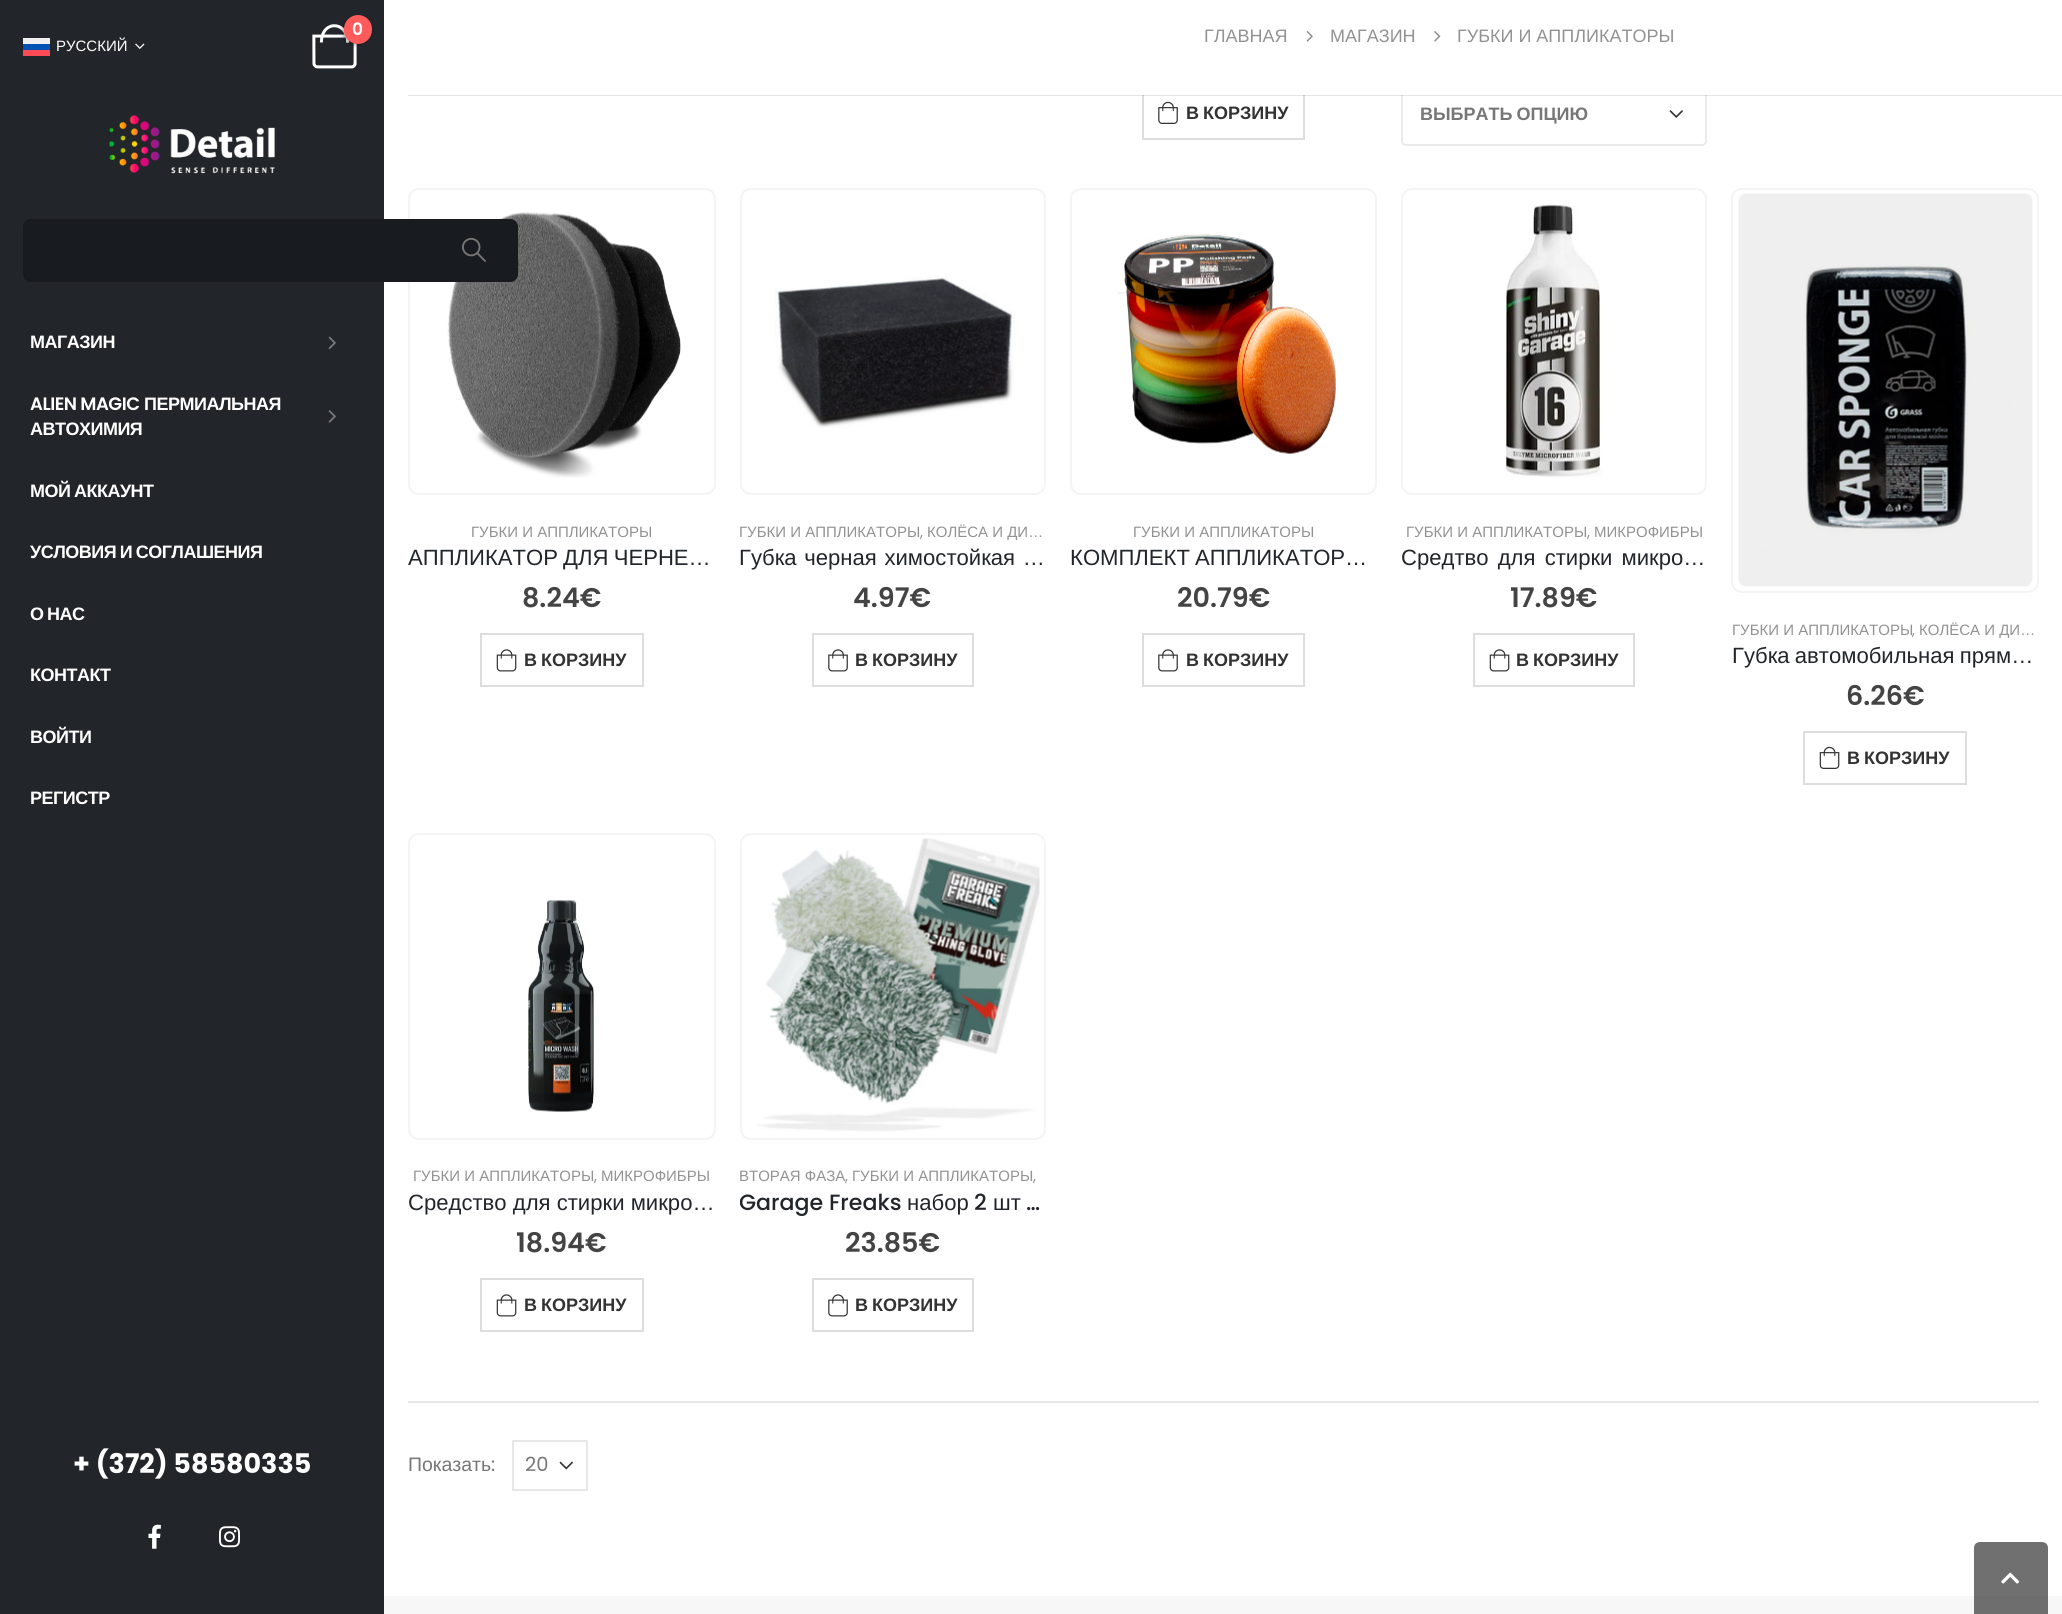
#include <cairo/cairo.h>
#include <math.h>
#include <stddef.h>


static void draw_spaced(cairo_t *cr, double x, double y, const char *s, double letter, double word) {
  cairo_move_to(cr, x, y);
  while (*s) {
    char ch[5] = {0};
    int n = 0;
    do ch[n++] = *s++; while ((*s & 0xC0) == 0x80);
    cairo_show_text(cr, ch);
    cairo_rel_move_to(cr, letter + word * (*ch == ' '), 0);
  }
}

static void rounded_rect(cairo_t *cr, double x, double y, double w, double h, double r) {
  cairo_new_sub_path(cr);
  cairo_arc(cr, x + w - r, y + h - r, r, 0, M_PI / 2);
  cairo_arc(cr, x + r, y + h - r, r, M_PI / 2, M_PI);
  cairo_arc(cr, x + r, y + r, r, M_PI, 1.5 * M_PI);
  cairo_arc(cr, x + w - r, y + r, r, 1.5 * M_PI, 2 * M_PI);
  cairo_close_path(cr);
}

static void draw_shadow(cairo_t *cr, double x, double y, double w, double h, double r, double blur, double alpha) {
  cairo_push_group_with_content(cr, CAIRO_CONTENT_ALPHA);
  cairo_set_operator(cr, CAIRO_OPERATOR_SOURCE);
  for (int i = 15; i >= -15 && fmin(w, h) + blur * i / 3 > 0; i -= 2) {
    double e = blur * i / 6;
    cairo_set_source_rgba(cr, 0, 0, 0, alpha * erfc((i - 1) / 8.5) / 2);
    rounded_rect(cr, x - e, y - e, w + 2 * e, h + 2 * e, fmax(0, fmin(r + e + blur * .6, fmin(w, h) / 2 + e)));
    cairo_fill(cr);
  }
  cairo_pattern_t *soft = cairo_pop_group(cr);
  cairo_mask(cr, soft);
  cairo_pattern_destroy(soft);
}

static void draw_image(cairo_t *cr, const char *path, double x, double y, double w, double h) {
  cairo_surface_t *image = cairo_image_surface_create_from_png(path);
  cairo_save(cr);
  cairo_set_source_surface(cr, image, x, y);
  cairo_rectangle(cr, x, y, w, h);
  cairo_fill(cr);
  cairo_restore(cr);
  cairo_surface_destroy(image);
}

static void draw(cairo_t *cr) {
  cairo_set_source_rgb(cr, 1, 1, 1);
  cairo_paint(cr);
  cairo_set_source_rgb(cr, 34 / 255.0, 37 / 255.0, 41 / 255.0);
  cairo_rectangle(cr, 0, 0, 384, 1614);
  cairo_fill(cr);
  draw_image(cr, "images/1.png", 312, 24, 45, 45);
  cairo_set_source_rgb(cr, 0, 0, 0);
  draw_shadow(cr, 342, 17, 29, 28, 14, 1.5, 0.3);
  cairo_set_source_rgb(cr, 1, 91 / 255.0, 91 / 255.0);
  rounded_rect(cr, 344, 15, 28, 29, 14);
  cairo_fill(cr);
  cairo_set_source_rgb(cr, 240 / 255.0, 240 / 255.0, 240 / 255.0);
  cairo_rectangle(cr, 23, 38, 27, 6);
  cairo_fill(cr);
  cairo_set_source_rgb(cr, 0, 82 / 255.0, 180 / 255.0);
  cairo_rectangle(cr, 23, 44, 27, 6);
  cairo_fill(cr);
  draw_image(cr, "images/2.png", 135, 43, 10, 6);
  cairo_set_source_rgb(cr, 1, 75 / 255.0, 85 / 255.0);
  cairo_rectangle(cr, 23, 50, 27, 6);
  cairo_fill(cr);
  draw_image(cr, "images/3.png", 109, 115, 166, 59);
  rounded_rect(cr, 409, 189, 306, 305, 10);
  cairo_set_source_rgb(cr, 244 / 255.0, 244 / 255.0, 244 / 255.0);
  cairo_stroke(cr);
  draw_image(cr, "images/13.png", 447, 212, 234, 266);
  cairo_set_source_rgb(cr, 24 / 255.0, 27 / 255.0, 31 / 255.0);
  rounded_rect(cr, 23, 219, 495, 63, 8);
  cairo_fill(cr);
  rounded_rect(cr, 24, 220, 493, 61, 7);
  cairo_set_source_rgba(cr, 24 / 255.0, 27 / 255.0, 31 / 255.0, 0.5);
  cairo_stroke(cr);
  draw_image(cr, "images/4.png", 462, 237, 24, 25);
  draw_image(cr, "images/5.png", 328, 336, 8, 14);
  draw_image(cr, "images/6.png", 328, 410, 8, 13);
  draw_image(cr, "images/7.png", 148, 1524, 13, 25);
  draw_image(cr, "images/8.png", 219, 1526, 21, 22);
  cairo_rectangle(cr, 1143, 87, 161, 52);
  cairo_set_source_rgb(cr, 221 / 255.0, 221 / 255.0, 221 / 255.0);
  cairo_stroke(cr);
  draw_image(cr, "images/12.png", 1669, 110, 14, 8);
  rounded_rect(cr, 1402, 84, 304, 61, 4);
  cairo_set_source_rgb(cr, 235 / 255.0, 235 / 255.0, 235 / 255.0);
  cairo_stroke(cr);
  cairo_set_source_rgba(cr, 0, 0, 0, 0.1);
  cairo_new_path(cr);
  cairo_move_to(cr, 408, 94);
  cairo_line_to(cr, 408, 96);
  cairo_line_to(cr, 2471, 96);
  cairo_line_to(cr, 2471, 2);
  cairo_line_to(cr, 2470, 2);
  cairo_line_to(cr, 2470, 94);
  cairo_close_path(cr);
  cairo_fill(cr);
  cairo_set_source_rgb(cr, 1, 1, 1);
  cairo_rectangle(cr, 408, 83, 1654, 12);
  cairo_fill(cr);
  draw_image(cr, "images/9.png", 1306, 31, 7, 11);
  draw_image(cr, "images/10.png", 1434, 31, 7, 11);
  draw_image(cr, "images/11.png", 1158, 101, 20, 23);
  cairo_rectangle(cr, 481, 634, 162, 52);
  cairo_set_source_rgb(cr, 221 / 255.0, 221 / 255.0, 221 / 255.0);
  cairo_stroke(cr);
  draw_image(cr, "images/14.png", 496, 649, 21, 23);
  rounded_rect(cr, 741, 189, 304, 305, 10);
  cairo_set_source_rgb(cr, 244 / 255.0, 244 / 255.0, 244 / 255.0);
  cairo_stroke(cr);
  draw_image(cr, "images/15.png", 775, 276, 240, 152);
  cairo_rectangle(cr, 813, 634, 160, 52);
  cairo_set_source_rgb(cr, 221 / 255.0, 221 / 255.0, 221 / 255.0);
  cairo_stroke(cr);
  draw_image(cr, "images/16.png", 828, 649, 20, 23);
  rounded_rect(cr, 1071, 189, 305, 305, 10);
  cairo_set_source_rgb(cr, 244 / 255.0, 244 / 255.0, 244 / 255.0);
  cairo_stroke(cr);
  draw_image(cr, "images/17.png", 1118, 234, 218, 221);
  cairo_rectangle(cr, 1143, 634, 161, 52);
  cairo_set_source_rgb(cr, 221 / 255.0, 221 / 255.0, 221 / 255.0);
  cairo_stroke(cr);
  draw_image(cr, "images/16.png", 1158, 649, 20, 23);
  rounded_rect(cr, 1402, 189, 304, 305, 10);
  cairo_set_source_rgb(cr, 244 / 255.0, 244 / 255.0, 244 / 255.0);
  cairo_stroke(cr);
  draw_image(cr, "images/18.png", 1505, 204, 97, 274);
  cairo_rectangle(cr, 1474, 634, 160, 52);
  cairo_set_source_rgb(cr, 221 / 255.0, 221 / 255.0, 221 / 255.0);
  cairo_stroke(cr);
  draw_image(cr, "images/14.png", 1489, 649, 21, 23);
  rounded_rect(cr, 1732, 189, 306, 403, 10);
  cairo_set_source_rgb(cr, 244 / 255.0, 244 / 255.0, 244 / 255.0);
  cairo_stroke(cr);
  draw_image(cr, "images/19.png", 1738, 193, 295, 394);
  cairo_rectangle(cr, 1804, 732, 162, 52);
  cairo_set_source_rgb(cr, 221 / 255.0, 221 / 255.0, 221 / 255.0);
  cairo_stroke(cr);
  draw_image(cr, "images/20.png", 1819, 746, 21, 23);
  rounded_rect(cr, 409, 834, 306, 305, 10);
  cairo_set_source_rgb(cr, 244 / 255.0, 244 / 255.0, 244 / 255.0);
  cairo_stroke(cr);
  draw_image(cr, "images/21.png", 528, 900, 66, 212);
  cairo_rectangle(cr, 481, 1279, 162, 52);
  cairo_set_source_rgb(cr, 221 / 255.0, 221 / 255.0, 221 / 255.0);
  cairo_stroke(cr);
  draw_image(cr, "images/14.png", 496, 1294, 21, 23);
  rounded_rect(cr, 741, 834, 304, 305, 10);
  cairo_set_source_rgb(cr, 244 / 255.0, 244 / 255.0, 244 / 255.0);
  cairo_stroke(cr);
  draw_image(cr, "images/22.png", 757, 838, 283, 294);
  cairo_rectangle(cr, 813, 1279, 160, 52);
  cairo_set_source_rgb(cr, 221 / 255.0, 221 / 255.0, 221 / 255.0);
  cairo_stroke(cr);
  draw_image(cr, "images/16.png", 828, 1294, 20, 23);
  cairo_set_source_rgb(cr, 231 / 255.0, 231 / 255.0, 231 / 255.0);
  cairo_rectangle(cr, 408, 1401, 1631, 2);
  cairo_fill(cr);
  draw_image(cr, "images/23.png", 559, 1461, 14, 9);
  cairo_rectangle(cr, 513, 1441, 74, 49);
  cairo_stroke(cr);
  cairo_set_source_rgb(cr, 247 / 255.0, 247 / 255.0, 247 / 255.0);
  cairo_rectangle(cr, 384, 1596, 1678, 18);
  cairo_fill(cr);
  cairo_set_source_rgba(cr, 64 / 255.0, 64 / 255.0, 64 / 255.0, 0.75);
  cairo_new_path(cr);
  cairo_move_to(cr, 1980, 1542);
  cairo_line_to(cr, 2042, 1542);
  cairo_curve_to(cr, 2045.5, 1542, 2048, 1544.5, 2048, 1548);
  cairo_line_to(cr, 2048, 1614);
  cairo_line_to(cr, 1974, 1614);
  cairo_line_to(cr, 1974, 1548);
  cairo_curve_to(cr, 1974, 1544.5, 1976.5, 1542, 1980, 1542);
  cairo_close_path(cr);
  cairo_fill(cr);
  draw_image(cr, "images/24.png", 2001, 1572, 19, 12);
  cairo_select_font_face(cr, "Poppins SemiBold", CAIRO_FONT_SLANT_NORMAL, CAIRO_FONT_WEIGHT_NORMAL);
  cairo_set_font_size(cr, 17);
  cairo_set_source_rgb(cr, 1, 1, 1);
  cairo_move_to(cr, 352, 35);
  cairo_show_text(cr, "0");
  cairo_select_font_face(cr, "Liberation Sans", CAIRO_FONT_SLANT_NORMAL, CAIRO_FONT_WEIGHT_NORMAL);
  cairo_set_font_size(cr, 15);
  cairo_move_to(cr, 56, 51);
  cairo_show_text(cr, "РУССКИЙ");
  cairo_select_font_face(cr, "Liberation Sans", CAIRO_FONT_SLANT_NORMAL, CAIRO_FONT_WEIGHT_BOLD);
  cairo_set_font_size(cr, 18);
  draw_spaced(cr, 30, 348, "МАГАЗИН", -0.5, 0);
  cairo_select_font_face(cr, "Poppins SemiBold", CAIRO_FONT_SLANT_NORMAL, CAIRO_FONT_WEIGHT_NORMAL);
  draw_spaced(cr, 30, 410, "ALIEN MAGIC", -0.5, 0);
  cairo_select_font_face(cr, "Liberation Sans", CAIRO_FONT_SLANT_NORMAL, CAIRO_FONT_WEIGHT_BOLD);
  draw_spaced(cr, 144, 410, "ПЕРМИАЛЬНАЯ", -0.5, 0);
  draw_spaced(cr, 30, 435, "АВТОХИМИЯ", -0.5, 0);
  draw_spaced(cr, 30, 497, "МОЙ АККАУНТ", -0.5, -1);
  draw_spaced(cr, 30, 558, "УСЛОВИЯ И СОГЛАШЕНИЯ", -0.5, -1);
  draw_spaced(cr, 30, 620, "О НАС", -0.5, -1);
  draw_spaced(cr, 30, 681, "КОНТАКТ", -0.5, 0);
  draw_spaced(cr, 30, 743, "ВОЙТИ", -0.5, 0);
  draw_spaced(cr, 30, 804, "РЕГИСТР", -0.5, 0);
  cairo_select_font_face(cr, "Poppins", CAIRO_FONT_SLANT_NORMAL, CAIRO_FONT_WEIGHT_BOLD);
  cairo_set_font_size(cr, 27);
  cairo_move_to(cr, 73, 1473);
  cairo_show_text(cr, "+ (372) 58580335");
  cairo_select_font_face(cr, "Liberation Sans", CAIRO_FONT_SLANT_NORMAL, CAIRO_FONT_WEIGHT_NORMAL);
  cairo_set_font_size(cr, 18);
  cairo_set_source_rgb(cr, 146 / 255.0, 146 / 255.0, 146 / 255.0);
  cairo_move_to(cr, 1204, 42);
  cairo_show_text(cr, "ГЛАВНАЯ");
  cairo_move_to(cr, 1330, 42);
  cairo_show_text(cr, "МАГАЗИН");
  cairo_move_to(cr, 1457, 42);
  cairo_show_text(cr, "ГУБКИ И АППЛИКАТОРЫ");
  cairo_select_font_face(cr, "Liberation Sans", CAIRO_FONT_SLANT_NORMAL, CAIRO_FONT_WEIGHT_BOLD);
  cairo_set_source_rgb(cr, 51 / 255.0, 51 / 255.0, 51 / 255.0);
  draw_spaced(cr, 1186, 119, "В КОРЗИНУ", 0, -1);
  cairo_set_source_rgb(cr, 119 / 255.0, 119 / 255.0, 119 / 255.0);
  draw_spaced(cr, 1420, 120, "ВЫБРАТЬ ОПЦИЮ", 0, -1);
  cairo_select_font_face(cr, "Liberation Sans", CAIRO_FONT_SLANT_NORMAL, CAIRO_FONT_WEIGHT_NORMAL);
  cairo_set_font_size(cr, 15);
  cairo_set_source_rgb(cr, 146 / 255.0, 146 / 255.0, 146 / 255.0);
  cairo_move_to(cr, 471, 537);
  cairo_show_text(cr, "ГУБКИ И АППЛИКАТОРЫ");
  cairo_set_font_size(cr, 22.1);
  cairo_set_source_rgb(cr, 34 / 255.0, 37 / 255.0, 41 / 255.0);
  draw_spaced(cr, 408, 565, "АППЛИКАТОР ДЛЯ ЧЕРНЕ…", 0, -1);
  cairo_select_font_face(cr, "Poppins SemiBold", CAIRO_FONT_SLANT_NORMAL, CAIRO_FONT_WEIGHT_NORMAL);
  cairo_set_font_size(cr, 27);
  cairo_set_source_rgb(cr, 68 / 255.0, 68 / 255.0, 68 / 255.0);
  cairo_move_to(cr, 522, 607);
  cairo_show_text(cr, "8.24€");
  cairo_select_font_face(cr, "Liberation Sans", CAIRO_FONT_SLANT_NORMAL, CAIRO_FONT_WEIGHT_BOLD);
  cairo_set_font_size(cr, 18);
  cairo_set_source_rgb(cr, 51 / 255.0, 51 / 255.0, 51 / 255.0);
  draw_spaced(cr, 524, 666, "В КОРЗИНУ", 0, -1);
  cairo_select_font_face(cr, "Liberation Sans", CAIRO_FONT_SLANT_NORMAL, CAIRO_FONT_WEIGHT_NORMAL);
  cairo_set_font_size(cr, 15);
  cairo_set_source_rgb(cr, 146 / 255.0, 146 / 255.0, 146 / 255.0);
  cairo_move_to(cr, 739, 537);
  cairo_show_text(cr, "ГУБКИ И АППЛИКАТОРЫ");
  cairo_select_font_face(cr, "Poppins", CAIRO_FONT_SLANT_NORMAL, CAIRO_FONT_WEIGHT_NORMAL);
  cairo_move_to(cr, 920, 537);
  cairo_show_text(cr, ",");
  cairo_select_font_face(cr, "Liberation Sans", CAIRO_FONT_SLANT_NORMAL, CAIRO_FONT_WEIGHT_NORMAL);
  cairo_move_to(cr, 927, 537);
  cairo_show_text(cr, "КОЛЁСА И ДИ…");
  cairo_set_font_size(cr, 22.1);
  cairo_set_source_rgb(cr, 34 / 255.0, 37 / 255.0, 41 / 255.0);
  draw_spaced(cr, 739, 565, "Губка черная химостойкая …", 0, 1.5);
  cairo_select_font_face(cr, "Poppins SemiBold", CAIRO_FONT_SLANT_NORMAL, CAIRO_FONT_WEIGHT_NORMAL);
  cairo_set_font_size(cr, 27);
  cairo_set_source_rgb(cr, 68 / 255.0, 68 / 255.0, 68 / 255.0);
  cairo_move_to(cr, 853, 607);
  cairo_show_text(cr, "4.97€");
  cairo_select_font_face(cr, "Liberation Sans", CAIRO_FONT_SLANT_NORMAL, CAIRO_FONT_WEIGHT_BOLD);
  cairo_set_font_size(cr, 18);
  cairo_set_source_rgb(cr, 51 / 255.0, 51 / 255.0, 51 / 255.0);
  draw_spaced(cr, 855, 666, "В КОРЗИНУ", 0, -1);
  cairo_select_font_face(cr, "Liberation Sans", CAIRO_FONT_SLANT_NORMAL, CAIRO_FONT_WEIGHT_NORMAL);
  cairo_set_font_size(cr, 15);
  cairo_set_source_rgb(cr, 146 / 255.0, 146 / 255.0, 146 / 255.0);
  cairo_move_to(cr, 1133, 537);
  cairo_show_text(cr, "ГУБКИ И АППЛИКАТОРЫ");
  cairo_set_font_size(cr, 22.1);
  cairo_set_source_rgb(cr, 34 / 255.0, 37 / 255.0, 41 / 255.0);
  draw_spaced(cr, 1070, 565, "КОМПЛЕКТ АППЛИКАТОР…", 0, -1);
  cairo_select_font_face(cr, "Poppins SemiBold", CAIRO_FONT_SLANT_NORMAL, CAIRO_FONT_WEIGHT_NORMAL);
  cairo_set_font_size(cr, 27);
  cairo_set_source_rgb(cr, 68 / 255.0, 68 / 255.0, 68 / 255.0);
  cairo_move_to(cr, 1177, 607);
  cairo_show_text(cr, "20.79€");
  cairo_select_font_face(cr, "Liberation Sans", CAIRO_FONT_SLANT_NORMAL, CAIRO_FONT_WEIGHT_BOLD);
  cairo_set_font_size(cr, 18);
  cairo_set_source_rgb(cr, 51 / 255.0, 51 / 255.0, 51 / 255.0);
  draw_spaced(cr, 1186, 666, "В КОРЗИНУ", 0, -1);
  cairo_select_font_face(cr, "Liberation Sans", CAIRO_FONT_SLANT_NORMAL, CAIRO_FONT_WEIGHT_NORMAL);
  cairo_set_font_size(cr, 15);
  cairo_set_source_rgb(cr, 146 / 255.0, 146 / 255.0, 146 / 255.0);
  cairo_move_to(cr, 1406, 537);
  cairo_show_text(cr, "ГУБКИ И АППЛИКАТОРЫ");
  cairo_select_font_face(cr, "Poppins", CAIRO_FONT_SLANT_NORMAL, CAIRO_FONT_WEIGHT_NORMAL);
  cairo_move_to(cr, 1587, 537);
  cairo_show_text(cr, ",");
  cairo_select_font_face(cr, "Liberation Sans", CAIRO_FONT_SLANT_NORMAL, CAIRO_FONT_WEIGHT_NORMAL);
  cairo_move_to(cr, 1594, 537);
  cairo_show_text(cr, "МИКРОФИБРЫ");
  cairo_set_font_size(cr, 22.1);
  cairo_set_source_rgb(cr, 34 / 255.0, 37 / 255.0, 41 / 255.0);
  draw_spaced(cr, 1401, 565, "Средтво для стирки микро…", 0, 3);
  cairo_select_font_face(cr, "Poppins SemiBold", CAIRO_FONT_SLANT_NORMAL, CAIRO_FONT_WEIGHT_NORMAL);
  cairo_set_font_size(cr, 27);
  cairo_set_source_rgb(cr, 68 / 255.0, 68 / 255.0, 68 / 255.0);
  cairo_move_to(cr, 1510, 607);
  cairo_show_text(cr, "17.89€");
  cairo_select_font_face(cr, "Liberation Sans", CAIRO_FONT_SLANT_NORMAL, CAIRO_FONT_WEIGHT_BOLD);
  cairo_set_font_size(cr, 18);
  cairo_set_source_rgb(cr, 51 / 255.0, 51 / 255.0, 51 / 255.0);
  draw_spaced(cr, 1516, 666, "В КОРЗИНУ", 0, -1);
  cairo_select_font_face(cr, "Liberation Sans", CAIRO_FONT_SLANT_NORMAL, CAIRO_FONT_WEIGHT_NORMAL);
  cairo_set_font_size(cr, 15);
  cairo_set_source_rgb(cr, 146 / 255.0, 146 / 255.0, 146 / 255.0);
  cairo_move_to(cr, 1732, 635);
  cairo_show_text(cr, "ГУБКИ И АППЛИКАТОРЫ");
  cairo_select_font_face(cr, "Poppins", CAIRO_FONT_SLANT_NORMAL, CAIRO_FONT_WEIGHT_NORMAL);
  cairo_move_to(cr, 1912, 635);
  cairo_show_text(cr, ",");
  cairo_select_font_face(cr, "Liberation Sans", CAIRO_FONT_SLANT_NORMAL, CAIRO_FONT_WEIGHT_NORMAL);
  cairo_move_to(cr, 1919, 635);
  cairo_show_text(cr, "КОЛЁСА И ДИ…");
  cairo_set_font_size(cr, 22.1);
  cairo_set_source_rgb(cr, 34 / 255.0, 37 / 255.0, 41 / 255.0);
  draw_spaced(cr, 1732, 663, "Губка автомобильная прям…", 0, -1);
  cairo_select_font_face(cr, "Poppins SemiBold", CAIRO_FONT_SLANT_NORMAL, CAIRO_FONT_WEIGHT_NORMAL);
  cairo_set_font_size(cr, 27);
  cairo_set_source_rgb(cr, 68 / 255.0, 68 / 255.0, 68 / 255.0);
  cairo_move_to(cr, 1846, 705);
  cairo_show_text(cr, "6.26€");
  cairo_select_font_face(cr, "Liberation Sans", CAIRO_FONT_SLANT_NORMAL, CAIRO_FONT_WEIGHT_BOLD);
  cairo_set_font_size(cr, 18);
  cairo_set_source_rgb(cr, 51 / 255.0, 51 / 255.0, 51 / 255.0);
  draw_spaced(cr, 1847, 764, "В КОРЗИНУ", 0, -1);
  cairo_select_font_face(cr, "Liberation Sans", CAIRO_FONT_SLANT_NORMAL, CAIRO_FONT_WEIGHT_NORMAL);
  cairo_set_font_size(cr, 15);
  cairo_set_source_rgb(cr, 146 / 255.0, 146 / 255.0, 146 / 255.0);
  cairo_move_to(cr, 413, 1181);
  cairo_show_text(cr, "ГУБКИ И АППЛИКАТОРЫ");
  cairo_select_font_face(cr, "Poppins", CAIRO_FONT_SLANT_NORMAL, CAIRO_FONT_WEIGHT_NORMAL);
  cairo_move_to(cr, 594, 1181);
  cairo_show_text(cr, ",");
  cairo_select_font_face(cr, "Liberation Sans", CAIRO_FONT_SLANT_NORMAL, CAIRO_FONT_WEIGHT_NORMAL);
  cairo_move_to(cr, 601, 1181);
  cairo_show_text(cr, "МИКРОФИБРЫ");
  cairo_set_font_size(cr, 22.1);
  cairo_set_source_rgb(cr, 34 / 255.0, 37 / 255.0, 41 / 255.0);
  cairo_move_to(cr, 408, 1210);
  cairo_show_text(cr, "Средство для стирки микро…");
  cairo_select_font_face(cr, "Poppins SemiBold", CAIRO_FONT_SLANT_NORMAL, CAIRO_FONT_WEIGHT_NORMAL);
  cairo_set_font_size(cr, 27);
  cairo_set_source_rgb(cr, 68 / 255.0, 68 / 255.0, 68 / 255.0);
  cairo_move_to(cr, 516, 1252);
  cairo_show_text(cr, "18.94€");
  cairo_select_font_face(cr, "Liberation Sans", CAIRO_FONT_SLANT_NORMAL, CAIRO_FONT_WEIGHT_BOLD);
  cairo_set_font_size(cr, 18);
  cairo_set_source_rgb(cr, 51 / 255.0, 51 / 255.0, 51 / 255.0);
  draw_spaced(cr, 524, 1311, "В КОРЗИНУ", 0, -1);
  cairo_select_font_face(cr, "Liberation Sans", CAIRO_FONT_SLANT_NORMAL, CAIRO_FONT_WEIGHT_NORMAL);
  cairo_set_font_size(cr, 15);
  cairo_set_source_rgb(cr, 146 / 255.0, 146 / 255.0, 146 / 255.0);
  cairo_move_to(cr, 739, 1181);
  cairo_show_text(cr, "ВТОРАЯ ФАЗА");
  cairo_select_font_face(cr, "Poppins", CAIRO_FONT_SLANT_NORMAL, CAIRO_FONT_WEIGHT_NORMAL);
  cairo_move_to(cr, 845, 1181);
  cairo_show_text(cr, ",");
  cairo_select_font_face(cr, "Liberation Sans", CAIRO_FONT_SLANT_NORMAL, CAIRO_FONT_WEIGHT_NORMAL);
  cairo_move_to(cr, 852, 1181);
  cairo_show_text(cr, "ГУБКИ И АППЛИКАТОРЫ");
  cairo_select_font_face(cr, "Poppins", CAIRO_FONT_SLANT_NORMAL, CAIRO_FONT_WEIGHT_NORMAL);
  cairo_move_to(cr, 1033, 1181);
  cairo_show_text(cr, ",");
  cairo_save(cr);
  cairo_rectangle(cr, 740, 1190, 306, 30);
  cairo_clip(cr);
  cairo_select_font_face(cr, "Poppins Medium", CAIRO_FONT_SLANT_NORMAL, CAIRO_FONT_WEIGHT_NORMAL);
  cairo_set_font_size(cr, 22.1);
  cairo_set_source_rgb(cr, 34 / 255.0, 37 / 255.0, 41 / 255.0);
  cairo_move_to(cr, 739, 1210);
  cairo_show_text(cr, "Garage Freaks");
  cairo_restore(cr);
  cairo_select_font_face(cr, "Liberation Sans", CAIRO_FONT_SLANT_NORMAL, CAIRO_FONT_WEIGHT_NORMAL);
  cairo_set_font_size(cr, 22.1);
  cairo_set_source_rgb(cr, 34 / 255.0, 37 / 255.0, 41 / 255.0);
  cairo_move_to(cr, 907, 1210);
  cairo_show_text(cr, "набор");
  cairo_select_font_face(cr, "Poppins Medium", CAIRO_FONT_SLANT_NORMAL, CAIRO_FONT_WEIGHT_NORMAL);
  cairo_move_to(cr, 974, 1210);
  cairo_show_text(cr, "2");
  cairo_select_font_face(cr, "Liberation Sans", CAIRO_FONT_SLANT_NORMAL, CAIRO_FONT_WEIGHT_NORMAL);
  cairo_move_to(cr, 993, 1210);
  cairo_show_text(cr, "шт");
  cairo_select_font_face(cr, "Poppins Medium", CAIRO_FONT_SLANT_NORMAL, CAIRO_FONT_WEIGHT_NORMAL);
  cairo_move_to(cr, 1026, 1210);
  cairo_show_text(cr, "…");
  cairo_select_font_face(cr, "Poppins SemiBold", CAIRO_FONT_SLANT_NORMAL, CAIRO_FONT_WEIGHT_NORMAL);
  cairo_set_font_size(cr, 27);
  cairo_set_source_rgb(cr, 68 / 255.0, 68 / 255.0, 68 / 255.0);
  cairo_move_to(cr, 845, 1252);
  cairo_show_text(cr, "23.85€");
  cairo_select_font_face(cr, "Liberation Sans", CAIRO_FONT_SLANT_NORMAL, CAIRO_FONT_WEIGHT_BOLD);
  cairo_set_font_size(cr, 18);
  cairo_set_source_rgb(cr, 51 / 255.0, 51 / 255.0, 51 / 255.0);
  draw_spaced(cr, 855, 1311, "В КОРЗИНУ", 0, -1);
  cairo_select_font_face(cr, "Liberation Sans", CAIRO_FONT_SLANT_NORMAL, CAIRO_FONT_WEIGHT_NORMAL);
  cairo_set_font_size(cr, 19.5);
  cairo_set_source_rgb(cr, 119 / 255.0, 119 / 255.0, 119 / 255.0);
  cairo_move_to(cr, 408, 1471);
  cairo_show_text(cr, "Показать");
  cairo_select_font_face(cr, "Poppins", CAIRO_FONT_SLANT_NORMAL, CAIRO_FONT_WEIGHT_NORMAL);
  cairo_move_to(cr, 491, 1471);
  cairo_show_text(cr, ":");
  cairo_move_to(cr, 525, 1471);
  cairo_show_text(cr, "20");
}

int main(void) {
  cairo_surface_t *surface = cairo_image_surface_create(CAIRO_FORMAT_RGB24, 2062, 1614);
  cairo_t *cr = cairo_create(surface);
  cairo_font_options_t *options = cairo_font_options_create();
  cairo_font_options_set_hint_metrics(options, CAIRO_HINT_METRICS_OFF);
  cairo_font_options_set_hint_style(options, CAIRO_HINT_STYLE_NONE);
  cairo_set_font_options(cr, options);
  cairo_set_miter_limit(cr, 4);
  draw(cr);
  cairo_surface_write_to_png(surface, "out.png");
  cairo_font_options_destroy(options);
  cairo_destroy(cr);
  cairo_surface_destroy(surface);
  return 0;
}
